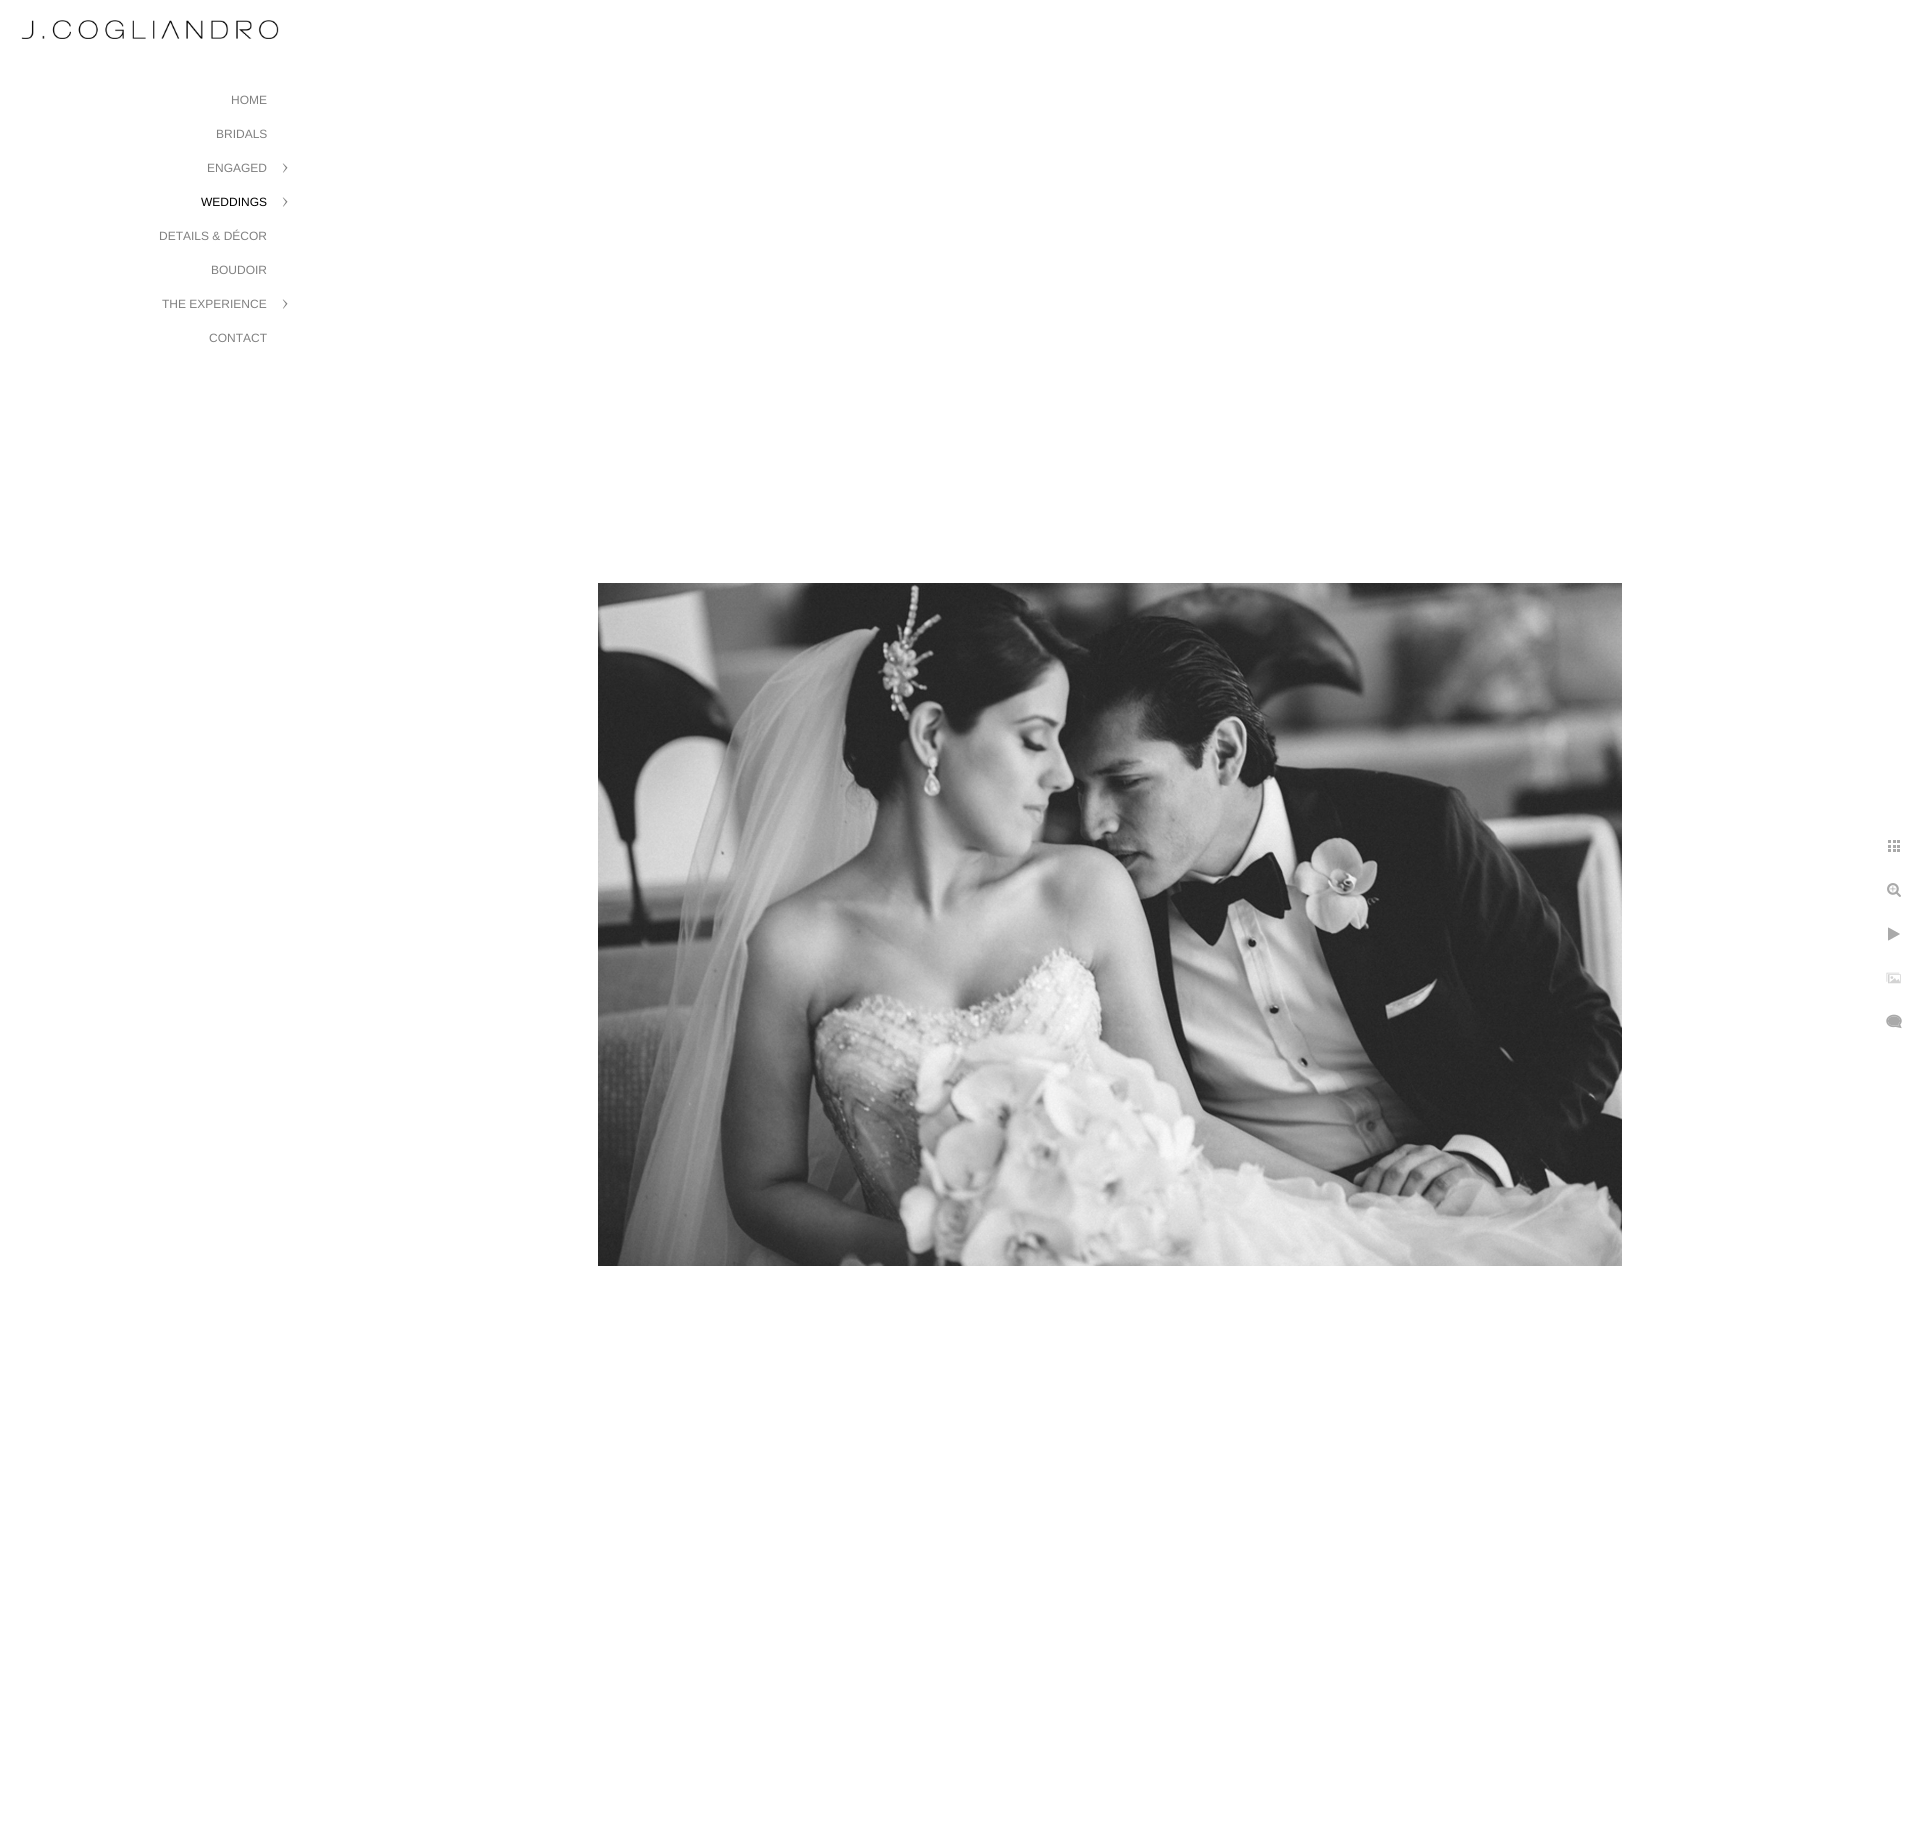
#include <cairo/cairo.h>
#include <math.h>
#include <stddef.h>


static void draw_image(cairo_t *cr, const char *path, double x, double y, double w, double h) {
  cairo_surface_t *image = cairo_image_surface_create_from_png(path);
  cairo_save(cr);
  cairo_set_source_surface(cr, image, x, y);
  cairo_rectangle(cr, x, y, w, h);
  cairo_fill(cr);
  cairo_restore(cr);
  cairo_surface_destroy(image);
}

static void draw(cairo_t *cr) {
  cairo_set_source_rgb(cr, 1, 1, 1);
  cairo_paint(cr);
  draw_image(cr, "images/1.png", 21, 20, 258, 19);
  draw_image(cr, "images/2.png", 282, 163, 6, 10);
  draw_image(cr, "images/2.png", 282, 197, 6, 10);
  draw_image(cr, "images/2.png", 282, 299, 6, 10);
  draw_image(cr, "images/3.png", 598, 583, 1024, 683);
  draw_image(cr, "images/4.png", 1888, 840, 12, 12);
  draw_image(cr, "images/5.png", 1887, 883, 14, 14);
  draw_image(cr, "images/6.png", 1888, 927, 12, 14);
  draw_image(cr, "images/7.png", 1886, 972, 15, 12);
  draw_image(cr, "images/8.png", 1886, 1014, 16, 15);
  cairo_select_font_face(cr, "Liberation Sans", CAIRO_FONT_SLANT_NORMAL, CAIRO_FONT_WEIGHT_NORMAL);
  cairo_set_font_size(cr, 12);
  cairo_set_source_rgb(cr, 128 / 255.0, 128 / 255.0, 128 / 255.0);
  cairo_move_to(cr, 231, 104);
  cairo_show_text(cr, "HOME");
  cairo_move_to(cr, 216, 138);
  cairo_show_text(cr, "BRIDALS");
  cairo_move_to(cr, 207, 172);
  cairo_show_text(cr, "ENGAGED");
  cairo_set_source_rgb(cr, 0, 0, 0);
  cairo_move_to(cr, 201, 206);
  cairo_show_text(cr, "WEDDINGS");
  cairo_set_source_rgb(cr, 128 / 255.0, 128 / 255.0, 128 / 255.0);
  cairo_move_to(cr, 159, 240);
  cairo_show_text(cr, "DETAILS & DÉCOR");
  cairo_move_to(cr, 211, 274);
  cairo_show_text(cr, "BOUDOIR");
  cairo_move_to(cr, 162, 308);
  cairo_show_text(cr, "THE EXPERIENCE");
  cairo_move_to(cr, 209, 342);
  cairo_show_text(cr, "CONTACT");
}

int main(void) {
  cairo_surface_t *surface = cairo_image_surface_create(CAIRO_FORMAT_RGB24, 1921, 1848);
  cairo_t *cr = cairo_create(surface);
  cairo_font_options_t *options = cairo_font_options_create();
  cairo_font_options_set_hint_metrics(options, CAIRO_HINT_METRICS_OFF);
  cairo_font_options_set_hint_style(options, CAIRO_HINT_STYLE_NONE);
  cairo_set_font_options(cr, options);
  cairo_set_miter_limit(cr, 4);
  draw(cr);
  cairo_surface_write_to_png(surface, "out.png");
  cairo_font_options_destroy(options);
  cairo_destroy(cr);
  cairo_surface_destroy(surface);
  return 0;
}
